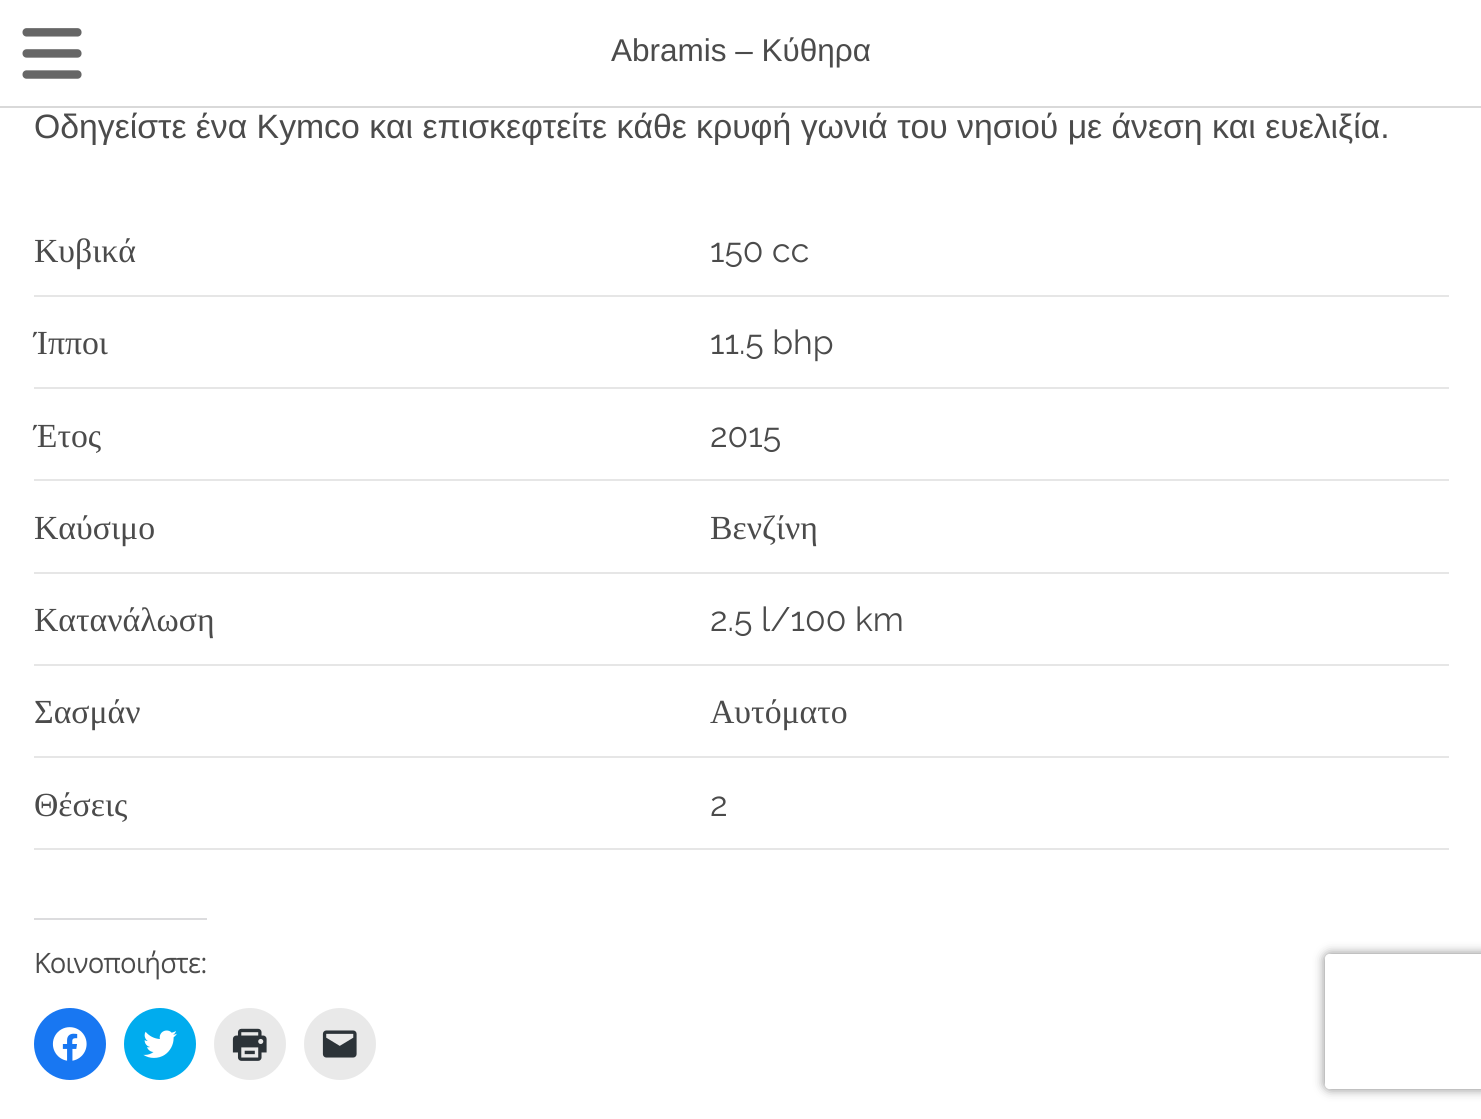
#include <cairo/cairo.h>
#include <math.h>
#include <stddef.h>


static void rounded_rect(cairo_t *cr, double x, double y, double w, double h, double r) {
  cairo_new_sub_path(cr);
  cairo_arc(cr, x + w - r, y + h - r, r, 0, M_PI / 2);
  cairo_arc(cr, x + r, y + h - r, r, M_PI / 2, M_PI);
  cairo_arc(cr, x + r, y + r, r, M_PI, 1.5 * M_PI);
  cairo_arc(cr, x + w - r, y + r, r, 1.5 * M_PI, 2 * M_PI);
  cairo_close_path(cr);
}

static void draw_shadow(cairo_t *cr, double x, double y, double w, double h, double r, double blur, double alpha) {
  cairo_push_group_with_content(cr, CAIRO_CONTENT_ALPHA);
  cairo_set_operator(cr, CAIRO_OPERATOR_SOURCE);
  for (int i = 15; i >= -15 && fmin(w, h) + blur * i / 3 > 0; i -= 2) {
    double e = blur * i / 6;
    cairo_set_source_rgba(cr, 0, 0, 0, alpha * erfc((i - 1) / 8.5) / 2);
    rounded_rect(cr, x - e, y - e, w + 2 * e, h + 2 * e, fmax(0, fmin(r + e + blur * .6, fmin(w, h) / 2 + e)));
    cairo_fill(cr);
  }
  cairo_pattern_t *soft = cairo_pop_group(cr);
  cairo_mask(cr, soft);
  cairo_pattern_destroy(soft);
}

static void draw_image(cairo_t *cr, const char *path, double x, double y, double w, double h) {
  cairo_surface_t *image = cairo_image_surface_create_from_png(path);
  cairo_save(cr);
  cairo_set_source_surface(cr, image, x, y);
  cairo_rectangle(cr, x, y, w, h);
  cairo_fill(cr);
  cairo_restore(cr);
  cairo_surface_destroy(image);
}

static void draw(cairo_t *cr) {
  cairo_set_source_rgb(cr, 1, 1, 1);
  cairo_paint(cr);
  cairo_set_source_rgb(cr, 217 / 255.0, 217 / 255.0, 217 / 255.0);
  cairo_rectangle(cr, 0, 106, 1481, 2);
  cairo_fill(cr);
  draw_image(cr, "images/1.png", 22, 28, 60, 51);
  cairo_set_source_rgb(cr, 230 / 255.0, 230 / 255.0, 230 / 255.0);
  cairo_rectangle(cr, 34, 295, 1415, 2);
  cairo_fill(cr);
  cairo_rectangle(cr, 34, 387, 1415, 2);
  cairo_fill(cr);
  cairo_rectangle(cr, 34, 479, 1415, 2);
  cairo_fill(cr);
  cairo_rectangle(cr, 34, 572, 1415, 2);
  cairo_fill(cr);
  cairo_rectangle(cr, 34, 664, 1415, 2);
  cairo_fill(cr);
  cairo_rectangle(cr, 34, 756, 1415, 2);
  cairo_fill(cr);
  cairo_rectangle(cr, 34, 848, 1415, 2);
  cairo_fill(cr);
  cairo_set_source_rgb(cr, 220 / 255.0, 220 / 255.0, 222 / 255.0);
  cairo_rectangle(cr, 34, 918, 173, 2);
  cairo_fill(cr);
  cairo_set_source_rgb(cr, 24 / 255.0, 119 / 255.0, 242 / 255.0);
  cairo_arc(cr, 70, 1044, 36, 0, 2 * M_PI);
  cairo_fill(cr);
  draw_image(cr, "images/2.png", 52, 1027, 35, 34);
  cairo_set_source_rgb(cr, 0, 172 / 255.0, 238 / 255.0);
  cairo_arc(cr, 160, 1044, 36, 0, 2 * M_PI);
  cairo_fill(cr);
  draw_image(cr, "images/3.png", 143, 1030, 34, 28);
  cairo_set_source_rgb(cr, 233 / 255.0, 233 / 255.0, 233 / 255.0);
  cairo_arc(cr, 250, 1044, 36, 0, 2 * M_PI);
  cairo_fill(cr);
  draw_image(cr, "images/4.png", 232, 1028, 35, 33);
  cairo_arc(cr, 340, 1044, 36, 0, 2 * M_PI);
  cairo_fill(cr);
  draw_image(cr, "images/5.png", 322, 1030, 35, 28);
  cairo_save(cr);
  cairo_set_fill_rule(cr, CAIRO_FILL_RULE_EVEN_ODD);
  cairo_new_path(cr);
  cairo_move_to(cr, 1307, 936);
  cairo_line_to(cr, 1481, 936);
  cairo_line_to(cr, 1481, 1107);
  cairo_line_to(cr, 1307, 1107);
  cairo_close_path(cr);
  cairo_move_to(cr, 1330, 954);
  cairo_line_to(cr, 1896, 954);
  cairo_curve_to(cr, 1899, 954, 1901, 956, 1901, 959);
  cairo_line_to(cr, 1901, 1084);
  cairo_curve_to(cr, 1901, 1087, 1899, 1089, 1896, 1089);
  cairo_line_to(cr, 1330, 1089);
  cairo_curve_to(cr, 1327, 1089, 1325, 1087, 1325, 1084);
  cairo_line_to(cr, 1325, 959);
  cairo_curve_to(cr, 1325, 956, 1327, 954, 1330, 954);
  cairo_close_path(cr);
  cairo_clip(cr);
  cairo_set_source_rgb(cr, 128 / 255.0, 128 / 255.0, 128 / 255.0);
  draw_shadow(cr, 1325, 954, 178, 135, 5, 5.5, 1);
  cairo_restore(cr);
  cairo_select_font_face(cr, "Arimo", CAIRO_FONT_SLANT_NORMAL, CAIRO_FONT_WEIGHT_NORMAL);
  cairo_set_font_size(cr, 31.5);
  cairo_set_source_rgb(cr, 75 / 255.0, 75 / 255.0, 75 / 255.0);
  cairo_move_to(cr, 611, 61);
  cairo_show_text(cr, "Abramis – Κύθηρα");
  cairo_set_font_size(cr, 33.75);
  cairo_move_to(cr, 34, 138);
  cairo_show_text(cr, "Οδηγείστε ένα Kymco και επισκεφτείτε κάθε κρυφή γωνιά του νησιού με άνεση και ευελιξία.");
  cairo_select_font_face(cr, "Liberation Serif", CAIRO_FONT_SLANT_NORMAL, CAIRO_FONT_WEIGHT_NORMAL);
  cairo_move_to(cr, 34, 262);
  cairo_show_text(cr, "Κυβικά");
  cairo_select_font_face(cr, "Raleway", CAIRO_FONT_SLANT_NORMAL, CAIRO_FONT_WEIGHT_NORMAL);
  cairo_move_to(cr, 710, 262);
  cairo_show_text(cr, "150 cc");
  cairo_select_font_face(cr, "Liberation Serif", CAIRO_FONT_SLANT_NORMAL, CAIRO_FONT_WEIGHT_NORMAL);
  cairo_move_to(cr, 34, 354);
  cairo_show_text(cr, "Ίπποι");
  cairo_select_font_face(cr, "Raleway", CAIRO_FONT_SLANT_NORMAL, CAIRO_FONT_WEIGHT_NORMAL);
  cairo_move_to(cr, 710, 354);
  cairo_show_text(cr, "11.5 bhp");
  cairo_select_font_face(cr, "Liberation Serif", CAIRO_FONT_SLANT_NORMAL, CAIRO_FONT_WEIGHT_NORMAL);
  cairo_move_to(cr, 34, 447);
  cairo_show_text(cr, "Έτος");
  cairo_select_font_face(cr, "Raleway", CAIRO_FONT_SLANT_NORMAL, CAIRO_FONT_WEIGHT_NORMAL);
  cairo_move_to(cr, 710, 447);
  cairo_show_text(cr, "2015");
  cairo_select_font_face(cr, "Liberation Serif", CAIRO_FONT_SLANT_NORMAL, CAIRO_FONT_WEIGHT_NORMAL);
  cairo_move_to(cr, 34, 539);
  cairo_show_text(cr, "Καύσιμο");
  cairo_move_to(cr, 710, 539);
  cairo_show_text(cr, "Βενζίνη");
  cairo_move_to(cr, 34, 631);
  cairo_show_text(cr, "Κατανάλωση");
  cairo_select_font_face(cr, "Raleway", CAIRO_FONT_SLANT_NORMAL, CAIRO_FONT_WEIGHT_NORMAL);
  cairo_move_to(cr, 710, 631);
  cairo_show_text(cr, "2.5 l/100 km");
  cairo_select_font_face(cr, "Liberation Serif", CAIRO_FONT_SLANT_NORMAL, CAIRO_FONT_WEIGHT_NORMAL);
  cairo_move_to(cr, 34, 723);
  cairo_show_text(cr, "Σασμάν");
  cairo_move_to(cr, 710, 723);
  cairo_show_text(cr, "Αυτόματο");
  cairo_move_to(cr, 34, 816);
  cairo_show_text(cr, "Θέσεις");
  cairo_select_font_face(cr, "Raleway", CAIRO_FONT_SLANT_NORMAL, CAIRO_FONT_WEIGHT_NORMAL);
  cairo_move_to(cr, 710, 816);
  cairo_show_text(cr, "2");
  cairo_select_font_face(cr, "Open Sans", CAIRO_FONT_SLANT_NORMAL, CAIRO_FONT_WEIGHT_BOLD);
  cairo_set_font_size(cr, 27);
  cairo_move_to(cr, 34, 973);
  cairo_show_text(cr, "Κοινοποιήστε:");
}

int main(void) {
  cairo_surface_t *surface = cairo_image_surface_create(CAIRO_FORMAT_RGB24, 1481, 1119);
  cairo_t *cr = cairo_create(surface);
  cairo_font_options_t *options = cairo_font_options_create();
  cairo_font_options_set_hint_metrics(options, CAIRO_HINT_METRICS_OFF);
  cairo_font_options_set_hint_style(options, CAIRO_HINT_STYLE_NONE);
  cairo_set_font_options(cr, options);
  cairo_set_miter_limit(cr, 4);
  draw(cr);
  cairo_surface_write_to_png(surface, "out.png");
  cairo_font_options_destroy(options);
  cairo_destroy(cr);
  cairo_surface_destroy(surface);
  return 0;
}
